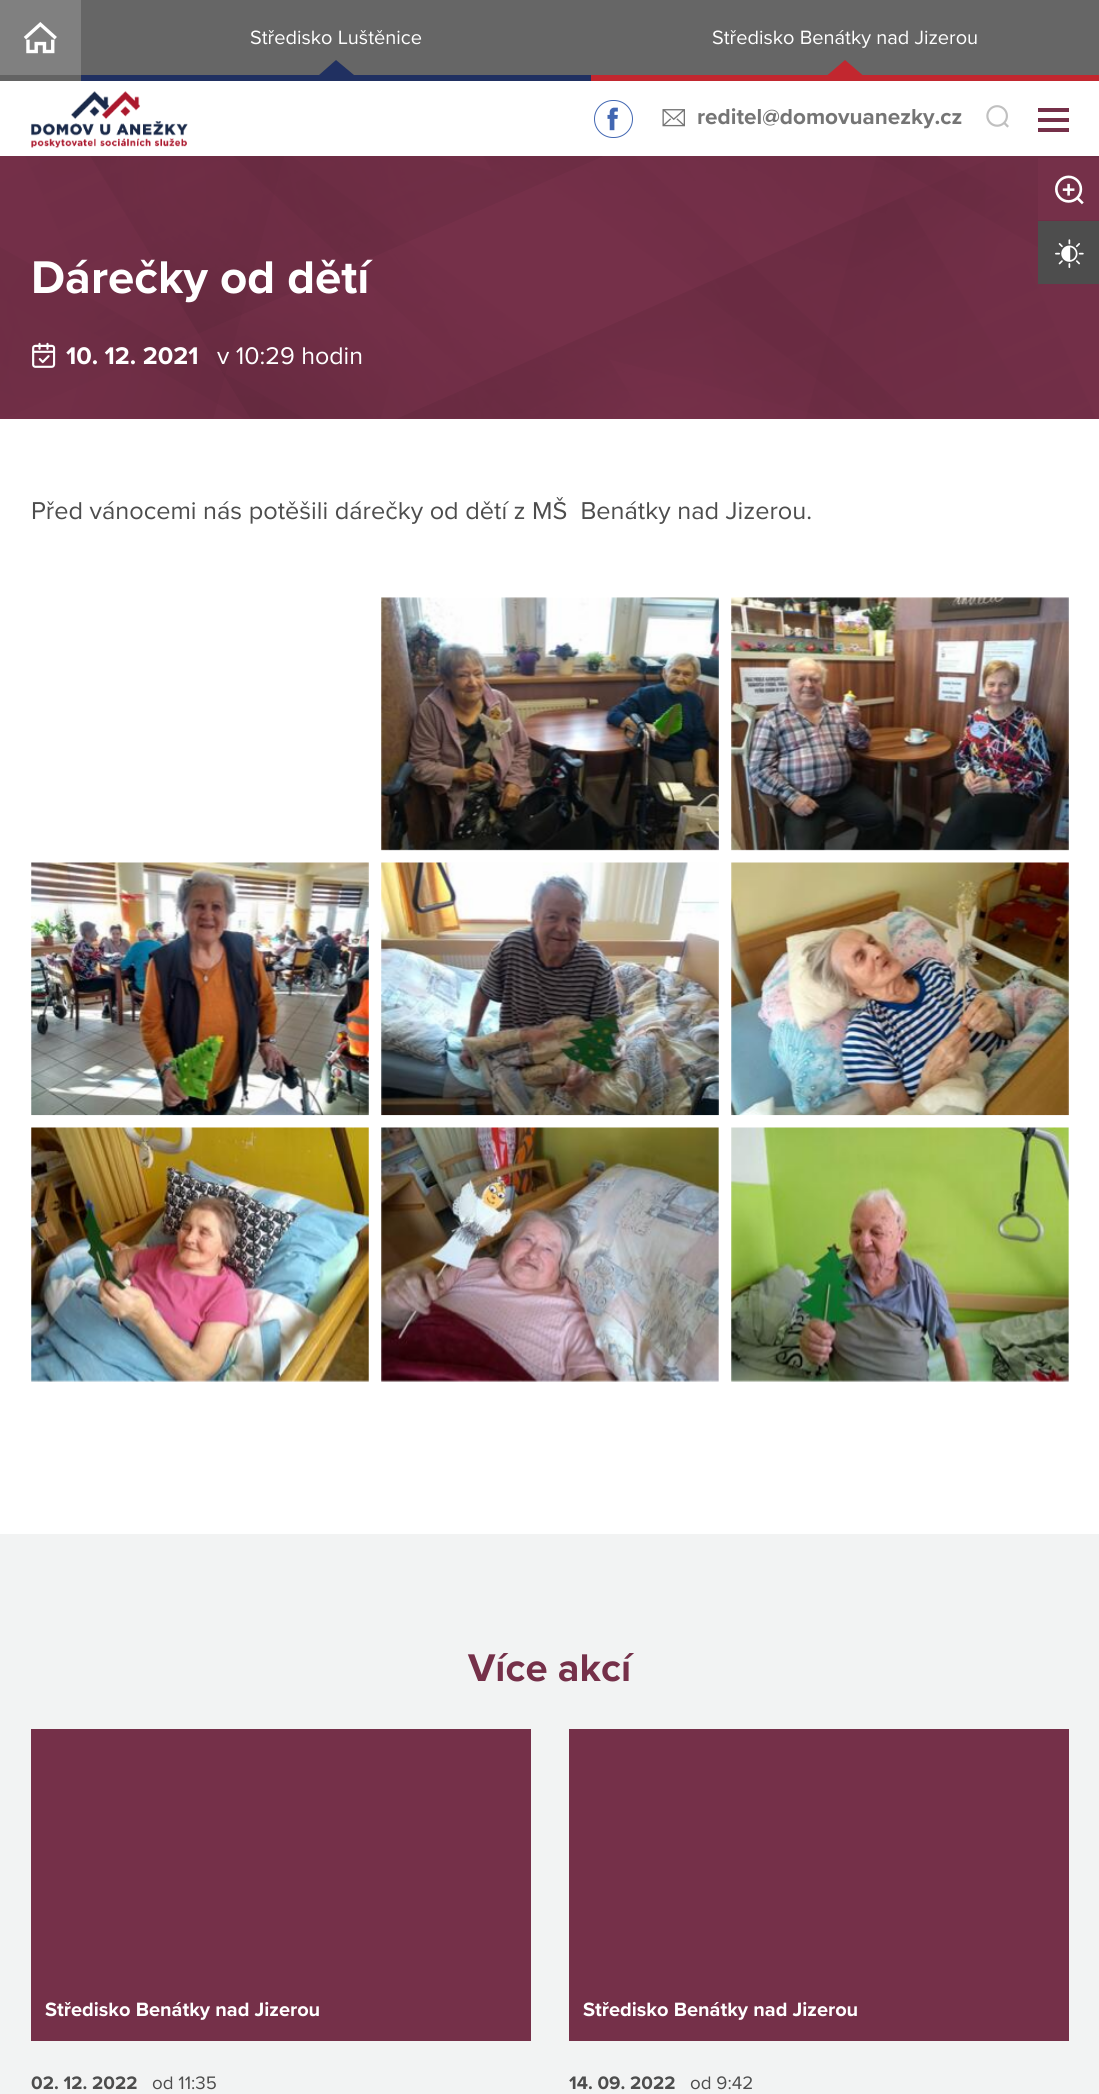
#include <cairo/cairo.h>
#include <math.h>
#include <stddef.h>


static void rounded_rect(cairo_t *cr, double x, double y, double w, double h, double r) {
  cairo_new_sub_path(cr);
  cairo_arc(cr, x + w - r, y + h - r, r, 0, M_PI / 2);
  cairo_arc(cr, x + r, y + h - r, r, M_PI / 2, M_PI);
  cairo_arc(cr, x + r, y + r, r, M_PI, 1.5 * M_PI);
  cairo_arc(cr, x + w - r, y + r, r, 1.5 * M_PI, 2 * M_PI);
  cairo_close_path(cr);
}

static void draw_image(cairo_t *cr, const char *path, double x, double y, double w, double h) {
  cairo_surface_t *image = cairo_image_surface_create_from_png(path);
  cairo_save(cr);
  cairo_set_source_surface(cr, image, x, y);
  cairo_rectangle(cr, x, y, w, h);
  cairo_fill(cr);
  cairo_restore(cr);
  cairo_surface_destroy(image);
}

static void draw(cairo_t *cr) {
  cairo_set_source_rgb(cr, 1, 1, 1);
  cairo_paint(cr);
  cairo_set_source_rgb(cr, 128 / 255.0, 128 / 255.0, 128 / 255.0);
  cairo_rectangle(cr, 0, 0, 81, 75);
  cairo_fill(cr);
  cairo_set_source_rgb(cr, 99 / 255.0, 99 / 255.0, 99 / 255.0);
  cairo_rectangle(cr, 0, 75, 81, 6);
  cairo_fill(cr);
  draw_image(cr, "images/1.png", 23, 22, 34, 32);
  cairo_set_source_rgb(cr, 102 / 255.0, 102 / 255.0, 102 / 255.0);
  cairo_rectangle(cr, 81, 0, 1018, 75);
  cairo_fill(cr);
  cairo_set_source_rgb(cr, 32 / 255.0, 48 / 255.0, 97 / 255.0);
  cairo_rectangle(cr, 81, 75, 510, 6);
  cairo_fill(cr);
  cairo_new_path(cr);
  cairo_move_to(cr, 354, 75);
  cairo_line_to(cr, 319, 75);
  cairo_line_to(cr, 336, 60);
  cairo_close_path(cr);
  cairo_fill(cr);
  cairo_set_source_rgb(cr, 194 / 255.0, 39 / 255.0, 47 / 255.0);
  cairo_rectangle(cr, 591, 75, 508, 6);
  cairo_fill(cr);
  cairo_new_path(cr);
  cairo_move_to(cr, 862.5, 75);
  cairo_line_to(cr, 827.5, 75);
  cairo_line_to(cr, 845, 60);
  cairo_close_path(cr);
  cairo_fill(cr);
  draw_image(cr, "images/2.png", 31, 91, 157, 57);
  rounded_rect(cr, 594.5, 100.5, 38, 37, 18.5);
  cairo_set_source_rgb(cr, 66 / 255.0, 103 / 255.0, 178 / 255.0);
  cairo_set_line_width(cr, 1);
  cairo_stroke(cr);
  draw_image(cr, "images/3.png", 607, 107, 11, 24);
  draw_image(cr, "images/4.png", 662, 109, 23, 18);
  draw_image(cr, "images/5.png", 986, 105, 23, 23);
  cairo_set_source_rgb(cr, 117 / 255.0, 48 / 255.0, 73 / 255.0);
  cairo_rectangle(cr, 1038, 118, 31, 4);
  cairo_fill(cr);
  cairo_rectangle(cr, 1038, 108, 31, 4);
  cairo_fill(cr);
  cairo_rectangle(cr, 1038, 128, 31, 4);
  cairo_fill(cr);
  cairo_rectangle(cr, 0, 156, 1099, 263);
  cairo_fill(cr);
  draw_image(cr, "images/8.png", 0, 156, 1099, 263);
  cairo_rectangle(cr, 1038, 158, 61, 62);
  cairo_fill(cr);
  draw_image(cr, "images/6.png", 1055, 175, 29, 30);
  cairo_set_source_rgb(cr, 77 / 255.0, 77 / 255.0, 77 / 255.0);
  cairo_rectangle(cr, 1038, 221, 61, 63);
  cairo_fill(cr);
  draw_image(cr, "images/7.png", 1055, 239, 29, 29);
  draw_image(cr, "images/9.png", 32, 342, 24, 26);
  draw_image(cr, "images/10.png", 381, 597, 338, 254);
  draw_image(cr, "images/11.png", 731, 597, 338, 254);
  draw_image(cr, "images/12.png", 31, 862, 338, 254);
  draw_image(cr, "images/13.png", 381, 862, 338, 254);
  draw_image(cr, "images/14.png", 731, 862, 338, 254);
  draw_image(cr, "images/15.png", 31, 1127, 338, 255);
  draw_image(cr, "images/16.png", 381, 1127, 338, 255);
  draw_image(cr, "images/17.png", 731, 1127, 338, 255);
  cairo_set_source_rgb(cr, 242 / 255.0, 243 / 255.0, 243 / 255.0);
  cairo_rectangle(cr, 0, 1534, 1099, 560);
  cairo_fill(cr);
  cairo_set_source_rgb(cr, 117 / 255.0, 48 / 255.0, 73 / 255.0);
  cairo_rectangle(cr, 31, 1729, 500, 312);
  cairo_fill(cr);
  cairo_rectangle(cr, 569, 1729, 500, 312);
  cairo_fill(cr);
  cairo_select_font_face(cr, "Proxima Nova", CAIRO_FONT_SLANT_NORMAL, CAIRO_FONT_WEIGHT_NORMAL);
  cairo_set_font_size(cr, 20);
  cairo_set_source_rgb(cr, 1, 1, 1);
  cairo_move_to(cr, 250, 44);
  cairo_show_text(cr, "Středisko Luštěnice");
  cairo_move_to(cr, 712, 44);
  cairo_show_text(cr, "Středisko Benátky nad Jizerou");
  cairo_select_font_face(cr, "Proxima Nova", CAIRO_FONT_SLANT_NORMAL, CAIRO_FONT_WEIGHT_BOLD);
  cairo_set_font_size(cr, 22.5);
  cairo_set_source_rgb(cr, 117 / 255.0, 117 / 255.0, 117 / 255.0);
  cairo_move_to(cr, 697, 124);
  cairo_show_text(cr, "reditel@domovuanezky.cz");
  cairo_set_font_size(cr, 47.5);
  cairo_set_source_rgb(cr, 1, 1, 1);
  cairo_move_to(cr, 31, 293);
  cairo_show_text(cr, "Dárečky od dětí");
  cairo_set_font_size(cr, 25);
  cairo_move_to(cr, 66, 364);
  cairo_show_text(cr, "10. 12. 2021");
  cairo_select_font_face(cr, "Proxima Nova", CAIRO_FONT_SLANT_NORMAL, CAIRO_FONT_WEIGHT_NORMAL);
  cairo_move_to(cr, 217, 364);
  cairo_show_text(cr, "v 10:29 hodin");
  cairo_set_font_size(cr, 25.3);
  cairo_set_source_rgb(cr, 77 / 255.0, 77 / 255.0, 77 / 255.0);
  cairo_move_to(cr, 31, 519);
  cairo_show_text(cr, "Před vánocemi nás potěšili dárečky od dětí z MŠ  Benátky nad Jizerou.");
  cairo_select_font_face(cr, "Proxima Nova", CAIRO_FONT_SLANT_NORMAL, CAIRO_FONT_WEIGHT_BOLD);
  cairo_set_font_size(cr, 40);
  cairo_set_source_rgb(cr, 117 / 255.0, 48 / 255.0, 73 / 255.0);
  cairo_move_to(cr, 468, 1681);
  cairo_show_text(cr, "Více akcí");
  cairo_set_font_size(cr, 20);
  cairo_set_source_rgb(cr, 1, 1, 1);
  cairo_move_to(cr, 45, 2016);
  cairo_show_text(cr, "Středisko Benátky nad Jizerou");
  cairo_set_font_size(cr, 18.75);
  cairo_set_source_rgb(cr, 77 / 255.0, 77 / 255.0, 77 / 255.0);
  cairo_move_to(cr, 31, 2089);
  cairo_show_text(cr, "02. 12. 2022");
  cairo_select_font_face(cr, "Proxima Nova", CAIRO_FONT_SLANT_NORMAL, CAIRO_FONT_WEIGHT_NORMAL);
  cairo_move_to(cr, 152, 2089);
  cairo_show_text(cr, "od 11:35");
  cairo_select_font_face(cr, "Proxima Nova", CAIRO_FONT_SLANT_NORMAL, CAIRO_FONT_WEIGHT_BOLD);
  cairo_set_font_size(cr, 20);
  cairo_set_source_rgb(cr, 1, 1, 1);
  cairo_move_to(cr, 583, 2016);
  cairo_show_text(cr, "Středisko Benátky nad Jizerou");
  cairo_set_font_size(cr, 18.75);
  cairo_set_source_rgb(cr, 77 / 255.0, 77 / 255.0, 77 / 255.0);
  cairo_move_to(cr, 569, 2089);
  cairo_show_text(cr, "14. 09. 2022");
  cairo_select_font_face(cr, "Proxima Nova", CAIRO_FONT_SLANT_NORMAL, CAIRO_FONT_WEIGHT_NORMAL);
  cairo_move_to(cr, 690, 2089);
  cairo_show_text(cr, "od 9:42");
}

int main(void) {
  cairo_surface_t *surface = cairo_image_surface_create(CAIRO_FORMAT_RGB24, 1099, 2094);
  cairo_t *cr = cairo_create(surface);
  cairo_font_options_t *options = cairo_font_options_create();
  cairo_font_options_set_hint_metrics(options, CAIRO_HINT_METRICS_OFF);
  cairo_font_options_set_hint_style(options, CAIRO_HINT_STYLE_NONE);
  cairo_set_font_options(cr, options);
  cairo_set_miter_limit(cr, 4);
  draw(cr);
  cairo_surface_write_to_png(surface, "out.png");
  cairo_font_options_destroy(options);
  cairo_destroy(cr);
  cairo_surface_destroy(surface);
  return 0;
}
